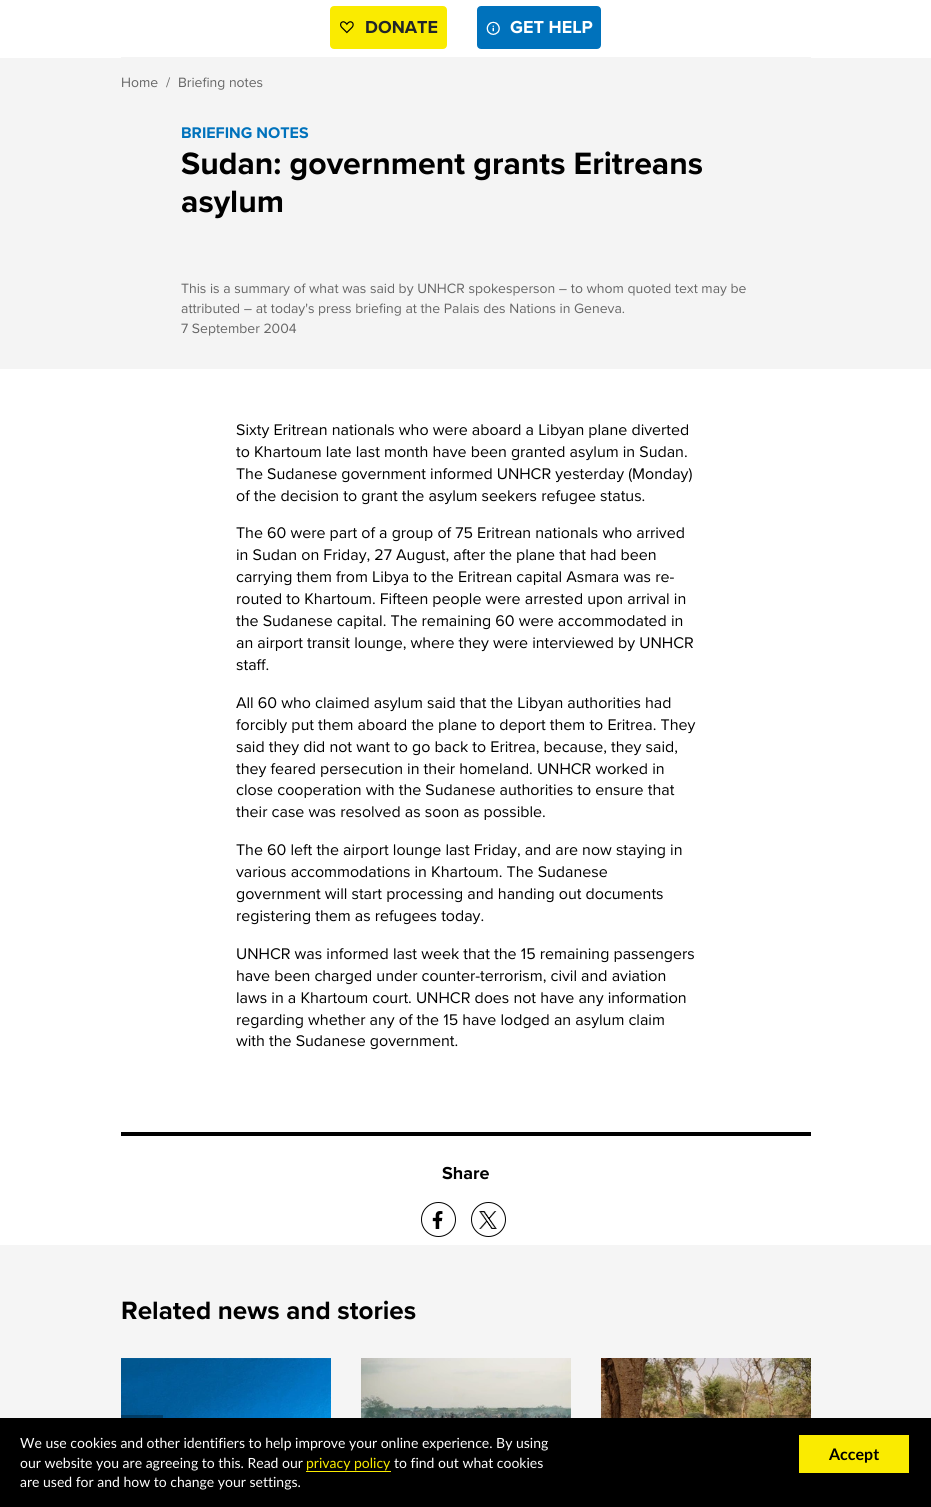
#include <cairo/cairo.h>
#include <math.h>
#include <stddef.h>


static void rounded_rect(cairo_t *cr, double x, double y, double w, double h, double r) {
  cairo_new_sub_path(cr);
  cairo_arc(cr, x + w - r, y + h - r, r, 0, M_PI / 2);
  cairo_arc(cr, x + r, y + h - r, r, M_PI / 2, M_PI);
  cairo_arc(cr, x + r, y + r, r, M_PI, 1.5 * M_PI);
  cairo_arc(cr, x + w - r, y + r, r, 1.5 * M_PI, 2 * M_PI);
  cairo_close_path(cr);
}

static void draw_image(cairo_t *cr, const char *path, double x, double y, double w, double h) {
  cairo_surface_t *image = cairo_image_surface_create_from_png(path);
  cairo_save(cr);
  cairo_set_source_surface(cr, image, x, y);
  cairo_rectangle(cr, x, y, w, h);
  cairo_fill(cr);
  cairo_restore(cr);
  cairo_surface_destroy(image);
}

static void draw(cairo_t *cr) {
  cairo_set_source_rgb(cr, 1, 1, 1);
  cairo_paint(cr);
  cairo_set_source_rgb(cr, 244 / 255.0, 244 / 255.0, 244 / 255.0);
  cairo_rectangle(cr, 121, 57, 690, 1);
  cairo_fill(cr);
  cairo_set_source_rgb(cr, 250 / 255.0, 235 / 255.0, 0);
  rounded_rect(cr, 331, 7, 115, 41, 3);
  cairo_fill_preserve(cr);
  cairo_stroke(cr);
  draw_image(cr, "images/1.png", 340, 21, 14, 13);
  cairo_set_source_rgb(cr, 0, 114 / 255.0, 188 / 255.0);
  rounded_rect(cr, 478, 7, 122, 41, 3);
  cairo_fill_preserve(cr);
  cairo_stroke(cr);
  draw_image(cr, "images/2.png", 486, 21, 14, 14);
  cairo_set_source_rgb(cr, 244 / 255.0, 244 / 255.0, 244 / 255.0);
  cairo_rectangle(cr, 0, 58, 931, 311);
  cairo_fill(cr);
  cairo_set_source_rgb(cr, 0, 0, 0);
  cairo_rectangle(cr, 121, 1132, 690, 4);
  cairo_fill(cr);
  cairo_arc(cr, 438.5, 1219.5, 17, 0, 2 * M_PI);
  cairo_set_line_width(cr, 1);
  cairo_stroke(cr);
  draw_image(cr, "images/3.png", 432, 1211, 11, 18);
  cairo_arc(cr, 488.5, 1219.5, 17, 0, 2 * M_PI);
  cairo_stroke(cr);
  draw_image(cr, "images/4.png", 479, 1211, 18, 18);
  cairo_set_source_rgb(cr, 245 / 255.0, 245 / 255.0, 245 / 255.0);
  cairo_rectangle(cr, 0, 1245, 931, 173);
  cairo_fill(cr);
  draw_image(cr, "images/5.png", 121, 1358, 210, 60);
  draw_image(cr, "images/6.png", 361, 1358, 210, 60);
  draw_image(cr, "images/7.png", 601, 1358, 210, 60);
  cairo_set_source_rgba(cr, 0, 0, 0, 0.3);
  cairo_rectangle(cr, 121, 1415, 42, 3);
  cairo_fill(cr);
  cairo_rectangle(cr, 769, 1415, 42, 3);
  cairo_fill(cr);
  cairo_set_source_rgb(cr, 0, 0, 0);
  cairo_rectangle(cr, 0, 1418, 931, 89);
  cairo_fill(cr);
  cairo_set_source_rgb(cr, 250 / 255.0, 235 / 255.0, 0);
  cairo_rectangle(cr, 306, 1471, 85, 1);
  cairo_fill(cr);
  cairo_rectangle(cr, 799, 1435, 110, 38);
  cairo_fill(cr);
  cairo_select_font_face(cr, "Proxima Nova", CAIRO_FONT_SLANT_NORMAL, CAIRO_FONT_WEIGHT_BOLD);
  cairo_set_font_size(cr, 18);
  cairo_set_source_rgb(cr, 33 / 255.0, 37 / 255.0, 41 / 255.0);
  cairo_move_to(cr, 365, 33);
  cairo_show_text(cr, "DONATE");
  cairo_set_source_rgb(cr, 1, 1, 1);
  cairo_move_to(cr, 510, 33);
  cairo_show_text(cr, "GET HELP");
  cairo_select_font_face(cr, "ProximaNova", CAIRO_FONT_SLANT_NORMAL, CAIRO_FONT_WEIGHT_NORMAL);
  cairo_set_font_size(cr, 14);
  cairo_set_source_rgb(cr, 102 / 255.0, 102 / 255.0, 102 / 255.0);
  cairo_move_to(cr, 121, 87);
  cairo_show_text(cr, "Home");
  cairo_move_to(cr, 166, 87);
  cairo_show_text(cr, "/");
  cairo_move_to(cr, 178, 87);
  cairo_show_text(cr, "Briefing notes");
  cairo_select_font_face(cr, "Proxima Nova", CAIRO_FONT_SLANT_NORMAL, CAIRO_FONT_WEIGHT_BOLD);
  cairo_set_font_size(cr, 16);
  cairo_set_source_rgb(cr, 0, 114 / 255.0, 188 / 255.0);
  cairo_move_to(cr, 181, 138);
  cairo_show_text(cr, "BRIEFING NOTES");
  cairo_set_font_size(cr, 32);
  cairo_set_source_rgb(cr, 0, 0, 0);
  cairo_move_to(cr, 181, 174);
  cairo_show_text(cr, "Sudan: government grants Eritreans");
  cairo_move_to(cr, 181, 212);
  cairo_show_text(cr, "asylum");
  cairo_select_font_face(cr, "ProximaNova", CAIRO_FONT_SLANT_NORMAL, CAIRO_FONT_WEIGHT_NORMAL);
  cairo_set_font_size(cr, 14);
  cairo_set_source_rgb(cr, 102 / 255.0, 102 / 255.0, 102 / 255.0);
  cairo_move_to(cr, 181, 293);
  cairo_show_text(cr, "This is a summary of what was said by UNHCR spokesperson – to whom quoted text may be");
  cairo_move_to(cr, 181, 313);
  cairo_show_text(cr, "attributed – at today's press briefing at the Palais des Nations in Geneva.");
  cairo_move_to(cr, 181, 333);
  cairo_show_text(cr, "7 September 2004");
  cairo_set_font_size(cr, 16);
  cairo_set_source_rgb(cr, 0, 0, 0);
  cairo_move_to(cr, 236, 435);
  cairo_show_text(cr, "Sixty Eritrean nationals who were aboard a Libyan plane diverted");
  cairo_move_to(cr, 236, 457);
  cairo_show_text(cr, "to Khartoum late last month have been granted asylum in Sudan.");
  cairo_move_to(cr, 236, 479);
  cairo_show_text(cr, "The Sudanese government informed UNHCR yesterday (Monday)");
  cairo_move_to(cr, 236, 501);
  cairo_show_text(cr, "of the decision to grant the asylum seekers refugee status.");
  cairo_move_to(cr, 236, 538);
  cairo_show_text(cr, "The 60 were part of a group of 75 Eritrean nationals who arrived");
  cairo_move_to(cr, 236, 560);
  cairo_show_text(cr, "in Sudan on Friday, 27 August, after the plane that had been");
  cairo_move_to(cr, 236, 582);
  cairo_show_text(cr, "carrying them from Libya to the Eritrean capital Asmara was re-");
  cairo_move_to(cr, 236, 604);
  cairo_show_text(cr, "routed to Khartoum. Fifteen people were arrested upon arrival in");
  cairo_move_to(cr, 236, 626);
  cairo_show_text(cr, "the Sudanese capital. The remaining 60 were accommodated in");
  cairo_move_to(cr, 236, 648);
  cairo_show_text(cr, "an airport transit lounge, where they were interviewed by UNHCR");
  cairo_move_to(cr, 236, 670);
  cairo_show_text(cr, "staff.");
  cairo_move_to(cr, 236, 708);
  cairo_show_text(cr, "All 60 who claimed asylum said that the Libyan authorities had");
  cairo_move_to(cr, 236, 730);
  cairo_show_text(cr, "forcibly put them aboard the plane to deport them to Eritrea. They");
  cairo_move_to(cr, 236, 752);
  cairo_show_text(cr, "said they did not want to go back to Eritrea, because, they said,");
  cairo_move_to(cr, 236, 774);
  cairo_show_text(cr, "they feared persecution in their homeland. UNHCR worked in");
  cairo_move_to(cr, 236, 795);
  cairo_show_text(cr, "close cooperation with the Sudanese authorities to ensure that");
  cairo_move_to(cr, 236, 817);
  cairo_show_text(cr, "their case was resolved as soon as possible.");
  cairo_move_to(cr, 236, 855);
  cairo_show_text(cr, "The 60 left the airport lounge last Friday, and are now staying in");
  cairo_move_to(cr, 236, 877);
  cairo_show_text(cr, "various accommodations in Khartoum. The Sudanese");
  cairo_move_to(cr, 236, 899);
  cairo_show_text(cr, "government will start processing and handing out documents");
  cairo_move_to(cr, 236, 921);
  cairo_show_text(cr, "registering them as refugees today.");
  cairo_move_to(cr, 236, 959);
  cairo_show_text(cr, "UNHCR was informed last week that the 15 remaining passengers");
  cairo_move_to(cr, 236, 981);
  cairo_show_text(cr, "have been charged under counter-terrorism, civil and aviation");
  cairo_move_to(cr, 236, 1003);
  cairo_show_text(cr, "laws in a Khartoum court. UNHCR does not have any information");
  cairo_move_to(cr, 236, 1025);
  cairo_show_text(cr, "regarding whether any of the 15 have lodged an asylum claim");
  cairo_move_to(cr, 236, 1046);
  cairo_show_text(cr, "with the Sudanese government.");
  cairo_select_font_face(cr, "Proxima Nova", CAIRO_FONT_SLANT_NORMAL, CAIRO_FONT_WEIGHT_BOLD);
  cairo_set_font_size(cr, 18);
  cairo_move_to(cr, 442, 1179);
  cairo_show_text(cr, "Share");
  cairo_set_font_size(cr, 26);
  cairo_move_to(cr, 121, 1319);
  cairo_show_text(cr, "Related news and stories");
  cairo_select_font_face(cr, "Lato", CAIRO_FONT_SLANT_NORMAL, CAIRO_FONT_WEIGHT_NORMAL);
  cairo_set_font_size(cr, 14);
  cairo_set_source_rgb(cr, 1, 1, 1);
  cairo_move_to(cr, 20, 1448);
  cairo_show_text(cr, "We use cookies and other identifiers to help improve your online experience. By using");
  cairo_move_to(cr, 20, 1468);
  cairo_show_text(cr, "our website you are agreeing to this. Read our");
  cairo_set_source_rgb(cr, 250 / 255.0, 235 / 255.0, 0);
  cairo_move_to(cr, 306, 1468);
  cairo_show_text(cr, "privacy policy");
  cairo_set_source_rgb(cr, 1, 1, 1);
  cairo_move_to(cr, 394, 1468);
  cairo_show_text(cr, "to find out what cookies");
  cairo_move_to(cr, 20, 1487);
  cairo_show_text(cr, "are used for and how to change your settings.");
  cairo_select_font_face(cr, "Lato", CAIRO_FONT_SLANT_NORMAL, CAIRO_FONT_WEIGHT_BOLD);
  cairo_set_font_size(cr, 16);
  cairo_set_source_rgb(cr, 0, 0, 0);
  cairo_move_to(cr, 829, 1460);
  cairo_show_text(cr, "Accept");
}

int main(void) {
  cairo_surface_t *surface = cairo_image_surface_create(CAIRO_FORMAT_RGB24, 931, 1507);
  cairo_t *cr = cairo_create(surface);
  cairo_font_options_t *options = cairo_font_options_create();
  cairo_font_options_set_hint_metrics(options, CAIRO_HINT_METRICS_OFF);
  cairo_font_options_set_hint_style(options, CAIRO_HINT_STYLE_NONE);
  cairo_set_font_options(cr, options);
  cairo_set_miter_limit(cr, 4);
  draw(cr);
  cairo_surface_write_to_png(surface, "out.png");
  cairo_font_options_destroy(options);
  cairo_destroy(cr);
  cairo_surface_destroy(surface);
  return 0;
}
